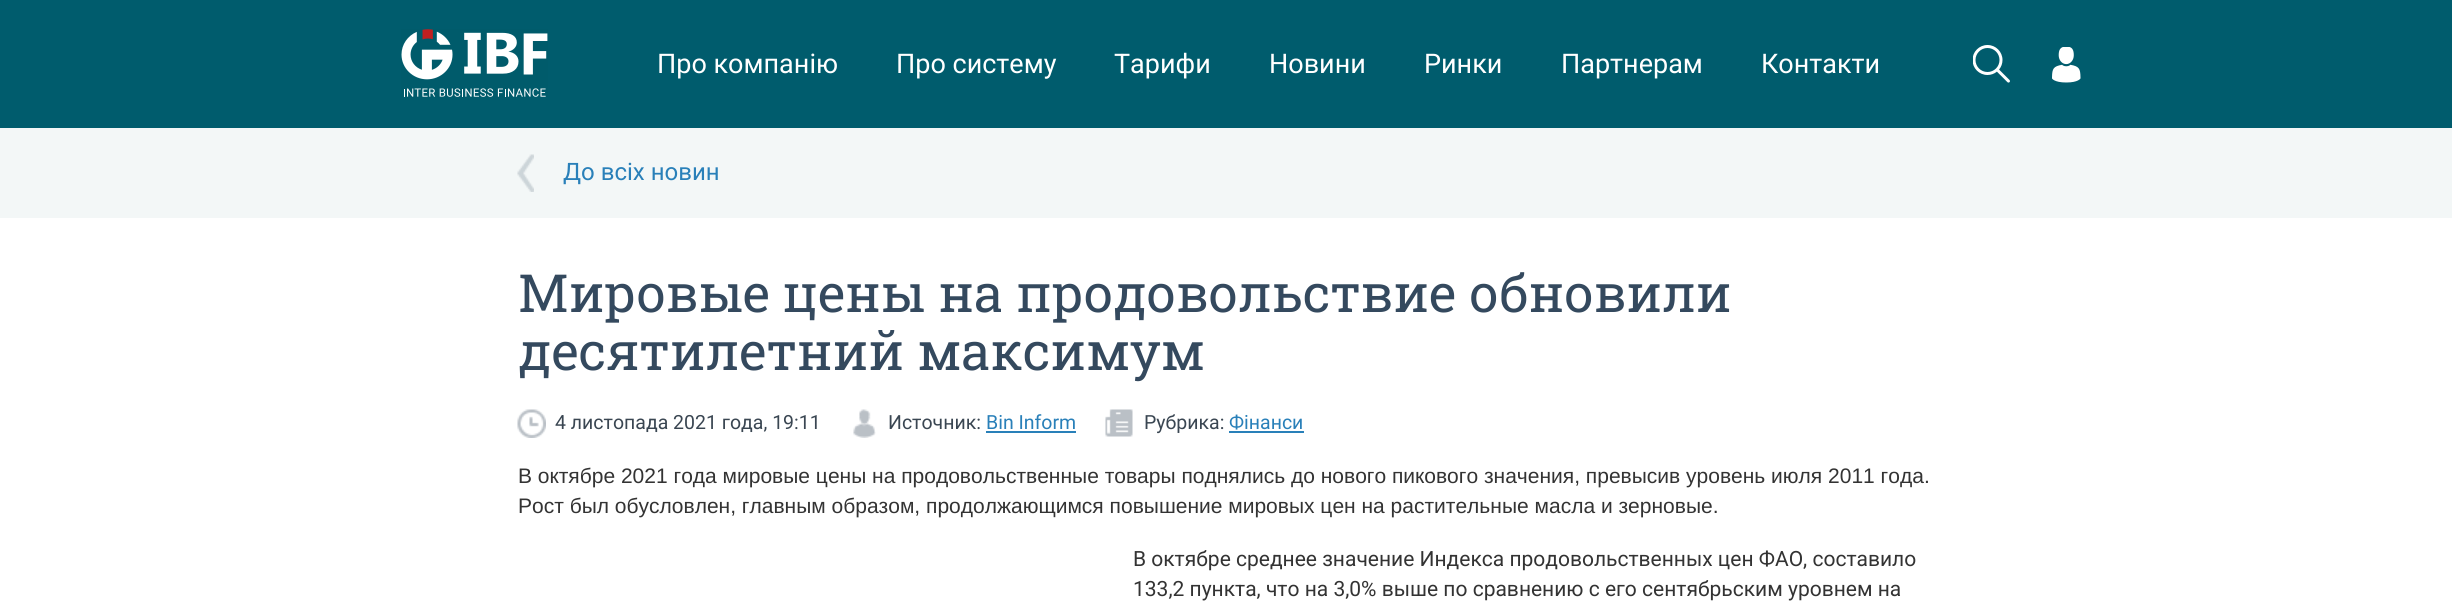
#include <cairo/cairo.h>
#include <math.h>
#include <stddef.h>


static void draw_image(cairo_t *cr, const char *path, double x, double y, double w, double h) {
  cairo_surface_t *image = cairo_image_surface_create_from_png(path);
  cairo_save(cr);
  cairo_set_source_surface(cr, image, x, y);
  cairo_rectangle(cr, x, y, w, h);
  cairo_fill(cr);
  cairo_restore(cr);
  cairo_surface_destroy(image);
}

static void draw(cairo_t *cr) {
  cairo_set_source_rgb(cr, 1, 1, 1);
  cairo_paint(cr);
  cairo_set_source_rgb(cr, 0, 92 / 255.0, 109 / 255.0);
  cairo_rectangle(cr, 0, 0, 2452, 128);
  cairo_fill(cr);
  draw_image(cr, "images/1.png", 401, 29, 147, 68);
  draw_image(cr, "images/2.png", 1973, 45, 37, 38);
  draw_image(cr, "images/3.png", 2052, 47, 29, 36);
  cairo_set_source_rgb(cr, 243 / 255.0, 247 / 255.0, 247 / 255.0);
  cairo_rectangle(cr, 0, 128, 2452, 90);
  cairo_fill(cr);
  draw_image(cr, "images/4.png", 517, 154, 17, 38);
  draw_image(cr, "images/5.png", 517, 409, 29, 29);
  draw_image(cr, "images/6.png", 853, 409, 23, 29);
  cairo_set_source_rgb(cr, 41 / 255.0, 128 / 255.0, 185 / 255.0);
  cairo_rectangle(cr, 986, 431, 90, 2);
  cairo_fill(cr);
  draw_image(cr, "images/7.png", 1105, 409, 28, 28);
  cairo_rectangle(cr, 1229, 431, 75, 2);
  cairo_fill(cr);
  cairo_select_font_face(cr, "Roboto", CAIRO_FONT_SLANT_NORMAL, CAIRO_FONT_WEIGHT_NORMAL);
  cairo_set_font_size(cr, 27);
  cairo_set_source_rgb(cr, 1, 1, 1);
  cairo_move_to(cr, 657, 73);
  cairo_show_text(cr, "Про компанію");
  cairo_move_to(cr, 896, 73);
  cairo_show_text(cr, "Про систему");
  cairo_move_to(cr, 1114, 73);
  cairo_show_text(cr, "Тарифи");
  cairo_move_to(cr, 1269, 73);
  cairo_show_text(cr, "Новини");
  cairo_move_to(cr, 1424, 73);
  cairo_show_text(cr, "Ринки");
  cairo_move_to(cr, 1561, 73);
  cairo_show_text(cr, "Партнерам");
  cairo_move_to(cr, 1761, 73);
  cairo_show_text(cr, "Контакти");
  cairo_set_font_size(cr, 24);
  cairo_set_source_rgb(cr, 41 / 255.0, 128 / 255.0, 185 / 255.0);
  cairo_move_to(cr, 563, 180);
  cairo_show_text(cr, "До всіх новин");
  cairo_select_font_face(cr, "Roboto Slab", CAIRO_FONT_SLANT_NORMAL, CAIRO_FONT_WEIGHT_NORMAL);
  cairo_set_font_size(cr, 52.5);
  cairo_set_source_rgb(cr, 52 / 255.0, 73 / 255.0, 94 / 255.0);
  cairo_move_to(cr, 518, 312);
  cairo_show_text(cr, "Мировые цены на продовольствие обновили");
  cairo_move_to(cr, 518, 370);
  cairo_show_text(cr, "десятилетний максимум");
  cairo_select_font_face(cr, "Roboto", CAIRO_FONT_SLANT_NORMAL, CAIRO_FONT_WEIGHT_NORMAL);
  cairo_set_font_size(cr, 19.5);
  cairo_set_source_rgb(cr, 58 / 255.0, 70 / 255.0, 82 / 255.0);
  cairo_move_to(cr, 555, 429);
  cairo_show_text(cr, "4 листопада 2021 года, 19:11");
  cairo_move_to(cr, 888, 429);
  cairo_show_text(cr, "Источник:");
  cairo_set_source_rgb(cr, 41 / 255.0, 128 / 255.0, 185 / 255.0);
  cairo_move_to(cr, 986, 429);
  cairo_show_text(cr, "Bin Inform");
  cairo_set_source_rgb(cr, 58 / 255.0, 70 / 255.0, 82 / 255.0);
  cairo_move_to(cr, 1144, 429);
  cairo_show_text(cr, "Рубрика:");
  cairo_set_source_rgb(cr, 41 / 255.0, 128 / 255.0, 185 / 255.0);
  cairo_move_to(cr, 1229, 429);
  cairo_show_text(cr, "Фінанси");
  cairo_select_font_face(cr, "Liberation Sans", CAIRO_FONT_SLANT_NORMAL, CAIRO_FONT_WEIGHT_NORMAL);
  cairo_set_font_size(cr, 21);
  cairo_set_source_rgb(cr, 51 / 255.0, 51 / 255.0, 51 / 255.0);
  cairo_move_to(cr, 518, 483);
  cairo_show_text(cr, "В октябре 2021 года мировые цены на продовольственные товары поднялись до нового пикового значения, превысив уровень июля 2011 года.");
  cairo_move_to(cr, 518, 513);
  cairo_show_text(cr, "Рост был обусловлен, главным образом, продолжающимся повышение мировых цен на растительные масла и зерновые.");
  cairo_select_font_face(cr, "Roboto", CAIRO_FONT_SLANT_NORMAL, CAIRO_FONT_WEIGHT_NORMAL);
  cairo_move_to(cr, 1133, 566);
  cairo_show_text(cr, "В октябре среднее значение Индекса продовольственных цен ФАО, составило");
  cairo_move_to(cr, 1133, 596);
  cairo_show_text(cr, "133,2 пункта, что на 3,0% выше по сравнению с его сентябрьским уровнем на");
}

int main(void) {
  cairo_surface_t *surface = cairo_image_surface_create(CAIRO_FORMAT_RGB24, 2452, 610);
  cairo_t *cr = cairo_create(surface);
  cairo_font_options_t *options = cairo_font_options_create();
  cairo_font_options_set_hint_metrics(options, CAIRO_HINT_METRICS_OFF);
  cairo_font_options_set_hint_style(options, CAIRO_HINT_STYLE_NONE);
  cairo_set_font_options(cr, options);
  cairo_set_miter_limit(cr, 4);
  draw(cr);
  cairo_surface_write_to_png(surface, "out.png");
  cairo_font_options_destroy(options);
  cairo_destroy(cr);
  cairo_surface_destroy(surface);
  return 0;
}
